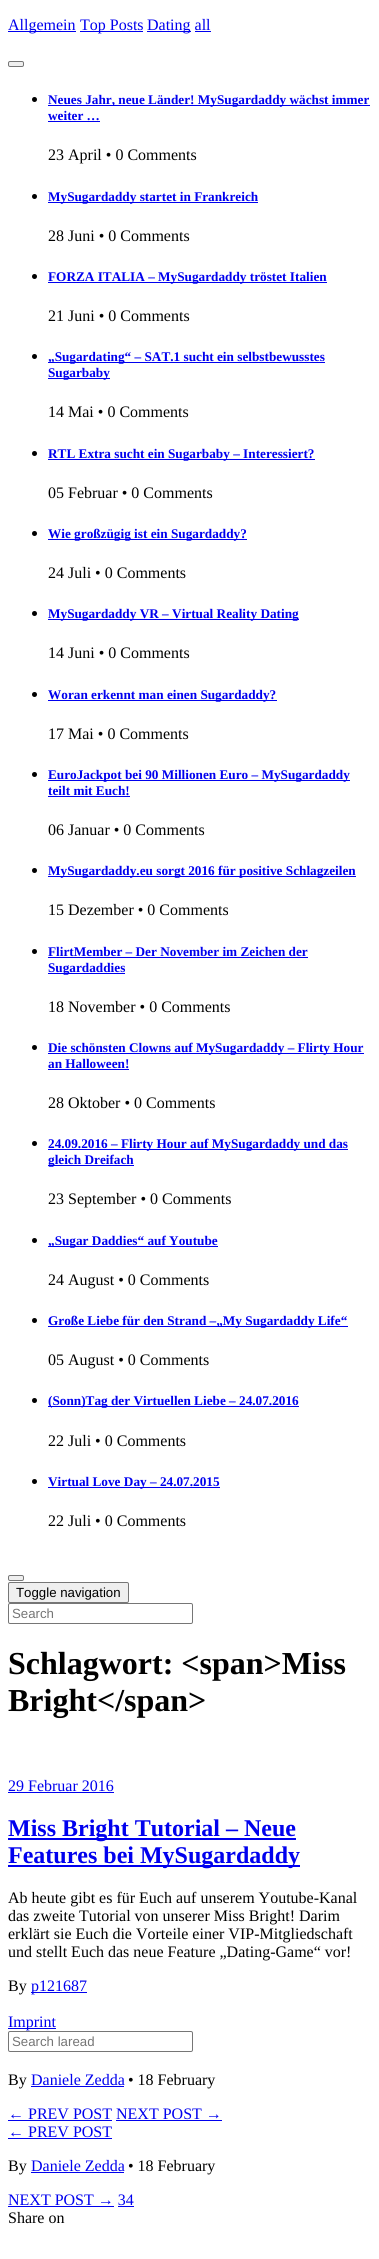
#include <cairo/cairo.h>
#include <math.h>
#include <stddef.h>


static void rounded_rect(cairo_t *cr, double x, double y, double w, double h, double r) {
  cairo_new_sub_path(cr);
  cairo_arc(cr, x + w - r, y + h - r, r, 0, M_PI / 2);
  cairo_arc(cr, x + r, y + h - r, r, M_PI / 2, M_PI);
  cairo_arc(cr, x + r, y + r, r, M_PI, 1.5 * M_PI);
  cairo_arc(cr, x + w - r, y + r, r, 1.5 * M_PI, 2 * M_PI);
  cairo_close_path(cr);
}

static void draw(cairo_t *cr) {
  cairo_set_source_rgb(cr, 1, 1, 1);
  cairo_paint(cr);
  cairo_set_source_rgb(cr, 0, 0, 238 / 255.0);
  cairo_rectangle(cr, 8, 31, 68, 1);
  cairo_fill(cr);
  cairo_rectangle(cr, 80, 31, 63, 1);
  cairo_fill(cr);
  cairo_rectangle(cr, 147, 31, 44, 1);
  cairo_fill(cr);
  cairo_rectangle(cr, 195, 31, 16, 1);
  cairo_fill(cr);
  cairo_set_source_rgb(cr, 239 / 255.0, 239 / 255.0, 239 / 255.0);
  rounded_rect(cr, 8.5, 61.5, 15, 5, 1.5);
  cairo_fill_preserve(cr);
  cairo_set_source_rgb(cr, 118 / 255.0, 118 / 255.0, 118 / 255.0);
  cairo_set_line_width(cr, 1);
  cairo_stroke(cr);
  cairo_set_source_rgb(cr, 0, 0, 0);
  cairo_arc(cr, 34.5, 99.5, 2.5, 0, 2 * M_PI);
  cairo_fill(cr);
  cairo_set_source_rgb(cr, 0, 0, 238 / 255.0);
  cairo_rectangle(cr, 48, 105, 322, 1);
  cairo_fill(cr);
  cairo_rectangle(cr, 48, 121, 52, 1);
  cairo_fill(cr);
  cairo_set_source_rgb(cr, 0, 0, 0);
  cairo_arc(cr, 34.5, 196.5, 2.5, 0, 2 * M_PI);
  cairo_fill(cr);
  cairo_set_source_rgb(cr, 0, 0, 238 / 255.0);
  cairo_rectangle(cr, 48, 202, 210, 1);
  cairo_fill(cr);
  cairo_set_source_rgb(cr, 0, 0, 0);
  cairo_arc(cr, 34.5, 276.5, 2.5, 0, 2 * M_PI);
  cairo_fill(cr);
  cairo_set_source_rgb(cr, 0, 0, 238 / 255.0);
  cairo_rectangle(cr, 48, 282, 279, 1);
  cairo_fill(cr);
  cairo_set_source_rgb(cr, 0, 0, 0);
  cairo_arc(cr, 34.5, 356.5, 2.5, 0, 2 * M_PI);
  cairo_fill(cr);
  cairo_set_source_rgb(cr, 0, 0, 238 / 255.0);
  cairo_rectangle(cr, 48, 362, 277, 1);
  cairo_fill(cr);
  cairo_rectangle(cr, 48, 378, 62, 1);
  cairo_fill(cr);
  cairo_set_source_rgb(cr, 0, 0, 0);
  cairo_arc(cr, 34.5, 453.5, 2.5, 0, 2 * M_PI);
  cairo_fill(cr);
  cairo_set_source_rgb(cr, 0, 0, 238 / 255.0);
  cairo_rectangle(cr, 48, 459, 267, 1);
  cairo_fill(cr);
  cairo_set_source_rgb(cr, 0, 0, 0);
  cairo_arc(cr, 34.5, 533.5, 2.5, 0, 2 * M_PI);
  cairo_fill(cr);
  cairo_set_source_rgb(cr, 0, 0, 238 / 255.0);
  cairo_rectangle(cr, 48, 539, 199, 1);
  cairo_fill(cr);
  cairo_set_source_rgb(cr, 0, 0, 0);
  cairo_arc(cr, 34.5, 613.5, 2.5, 0, 2 * M_PI);
  cairo_fill(cr);
  cairo_set_source_rgb(cr, 0, 0, 238 / 255.0);
  cairo_rectangle(cr, 48, 619, 251, 1);
  cairo_fill(cr);
  cairo_set_source_rgb(cr, 0, 0, 0);
  cairo_arc(cr, 34.5, 694.5, 2.5, 0, 2 * M_PI);
  cairo_fill(cr);
  cairo_set_source_rgb(cr, 0, 0, 238 / 255.0);
  cairo_rectangle(cr, 48, 700, 229, 1);
  cairo_fill(cr);
  cairo_set_source_rgb(cr, 0, 0, 0);
  cairo_arc(cr, 34.5, 774.5, 2.5, 0, 2 * M_PI);
  cairo_fill(cr);
  cairo_set_source_rgb(cr, 0, 0, 238 / 255.0);
  cairo_rectangle(cr, 48, 780, 302, 1);
  cairo_fill(cr);
  cairo_rectangle(cr, 48, 796, 82, 1);
  cairo_fill(cr);
  cairo_set_source_rgb(cr, 0, 0, 0);
  cairo_arc(cr, 34.5, 870.5, 2.5, 0, 2 * M_PI);
  cairo_fill(cr);
  cairo_set_source_rgb(cr, 0, 0, 238 / 255.0);
  cairo_rectangle(cr, 48, 876, 308, 1);
  cairo_fill(cr);
  cairo_set_source_rgb(cr, 0, 0, 0);
  cairo_arc(cr, 34.5, 951.5, 2.5, 0, 2 * M_PI);
  cairo_fill(cr);
  cairo_set_source_rgb(cr, 0, 0, 238 / 255.0);
  cairo_rectangle(cr, 48, 957, 260, 1);
  cairo_fill(cr);
  cairo_rectangle(cr, 48, 973, 77, 1);
  cairo_fill(cr);
  cairo_set_source_rgb(cr, 0, 0, 0);
  cairo_arc(cr, 34.5, 1047.5, 2.5, 0, 2 * M_PI);
  cairo_fill(cr);
  cairo_set_source_rgb(cr, 0, 0, 238 / 255.0);
  cairo_rectangle(cr, 48, 1053, 316, 1);
  cairo_fill(cr);
  cairo_rectangle(cr, 48, 1069, 81, 1);
  cairo_fill(cr);
  cairo_set_source_rgb(cr, 0, 0, 0);
  cairo_arc(cr, 34.5, 1143.5, 2.5, 0, 2 * M_PI);
  cairo_fill(cr);
  cairo_set_source_rgb(cr, 0, 0, 238 / 255.0);
  cairo_rectangle(cr, 48, 1149, 300, 1);
  cairo_fill(cr);
  cairo_rectangle(cr, 48, 1165, 86, 1);
  cairo_fill(cr);
  cairo_set_source_rgb(cr, 0, 0, 0);
  cairo_arc(cr, 34.5, 1240.5, 2.5, 0, 2 * M_PI);
  cairo_fill(cr);
  cairo_set_source_rgb(cr, 0, 0, 238 / 255.0);
  cairo_rectangle(cr, 48, 1246, 170, 1);
  cairo_fill(cr);
  cairo_set_source_rgb(cr, 0, 0, 0);
  cairo_arc(cr, 34.5, 1320.5, 2.5, 0, 2 * M_PI);
  cairo_fill(cr);
  cairo_set_source_rgb(cr, 0, 0, 238 / 255.0);
  cairo_rectangle(cr, 48, 1326, 300, 1);
  cairo_fill(cr);
  cairo_set_source_rgb(cr, 0, 0, 0);
  cairo_arc(cr, 34.5, 1400.5, 2.5, 0, 2 * M_PI);
  cairo_fill(cr);
  cairo_set_source_rgb(cr, 0, 0, 238 / 255.0);
  cairo_rectangle(cr, 48, 1406, 251, 1);
  cairo_fill(cr);
  cairo_set_source_rgb(cr, 0, 0, 0);
  cairo_arc(cr, 34.5, 1481.5, 2.5, 0, 2 * M_PI);
  cairo_fill(cr);
  cairo_set_source_rgb(cr, 0, 0, 238 / 255.0);
  cairo_rectangle(cr, 48, 1487, 172, 1);
  cairo_fill(cr);
  cairo_set_source_rgb(cr, 239 / 255.0, 239 / 255.0, 239 / 255.0);
  rounded_rect(cr, 8.5, 1575.5, 15, 5, 1.5);
  cairo_fill_preserve(cr);
  cairo_set_source_rgb(cr, 118 / 255.0, 118 / 255.0, 118 / 255.0);
  cairo_stroke(cr);
  cairo_set_source_rgb(cr, 239 / 255.0, 239 / 255.0, 239 / 255.0);
  rounded_rect(cr, 8.5, 1582.5, 120, 20, 1.5);
  cairo_fill_preserve(cr);
  cairo_set_source_rgb(cr, 118 / 255.0, 118 / 255.0, 118 / 255.0);
  cairo_stroke(cr);
  rounded_rect(cr, 8.5, 1603.5, 184, 20, 1.5);
  cairo_stroke(cr);
  cairo_set_source_rgb(cr, 0, 0, 238 / 255.0);
  cairo_rectangle(cr, 8, 1792, 106, 1);
  cairo_fill(cr);
  cairo_rectangle(cr, 8, 1838, 288, 2);
  cairo_fill(cr);
  cairo_rectangle(cr, 8, 1865, 292, 2);
  cairo_fill(cr);
  cairo_rectangle(cr, 31, 1992, 56, 1);
  cairo_fill(cr);
  cairo_rectangle(cr, 8, 2028, 48, 1);
  cairo_fill(cr);
  rounded_rect(cr, 8.5, 2031.5, 184, 20, 1.5);
  cairo_set_source_rgb(cr, 118 / 255.0, 118 / 255.0, 118 / 255.0);
  cairo_stroke(cr);
  cairo_set_source_rgb(cr, 0, 0, 238 / 255.0);
  cairo_rectangle(cr, 31, 2086, 93, 1);
  cairo_fill(cr);
  cairo_rectangle(cr, 8, 2120, 104, 1);
  cairo_fill(cr);
  cairo_rectangle(cr, 116, 2120, 106, 1);
  cairo_fill(cr);
  cairo_rectangle(cr, 8, 2138, 104, 1);
  cairo_fill(cr);
  cairo_rectangle(cr, 31, 2172, 93, 1);
  cairo_fill(cr);
  cairo_rectangle(cr, 8, 2206, 106, 1);
  cairo_fill(cr);
  cairo_rectangle(cr, 118, 2206, 16, 1);
  cairo_fill(cr);
  cairo_select_font_face(cr, "Liberation Serif", CAIRO_FONT_SLANT_NORMAL, CAIRO_FONT_WEIGHT_NORMAL);
  cairo_set_font_size(cr, 16);
  cairo_move_to(cr, 8, 30);
  cairo_show_text(cr, "Allgemein");
  cairo_move_to(cr, 80, 30);
  cairo_show_text(cr, "Top Posts");
  cairo_move_to(cr, 147, 30);
  cairo_show_text(cr, "Dating all");
  cairo_select_font_face(cr, "Liberation Serif", CAIRO_FONT_SLANT_NORMAL, CAIRO_FONT_WEIGHT_BOLD);
  cairo_set_font_size(cr, 13.25);
  cairo_move_to(cr, 48, 104);
  cairo_show_text(cr, "Neues Jahr, neue Länder! MySugardaddy wächst immer");
  cairo_move_to(cr, 48, 120);
  cairo_show_text(cr, "weiter …");
  cairo_select_font_face(cr, "Liberation Serif", CAIRO_FONT_SLANT_NORMAL, CAIRO_FONT_WEIGHT_NORMAL);
  cairo_set_font_size(cr, 16);
  cairo_set_source_rgb(cr, 0, 0, 0);
  cairo_move_to(cr, 48, 160);
  cairo_show_text(cr, "23 April • 0 Comments");
  cairo_select_font_face(cr, "Liberation Serif", CAIRO_FONT_SLANT_NORMAL, CAIRO_FONT_WEIGHT_BOLD);
  cairo_set_font_size(cr, 13.25);
  cairo_set_source_rgb(cr, 0, 0, 238 / 255.0);
  cairo_move_to(cr, 48, 201);
  cairo_show_text(cr, "MySugardaddy startet in Frankreich");
  cairo_select_font_face(cr, "Liberation Serif", CAIRO_FONT_SLANT_NORMAL, CAIRO_FONT_WEIGHT_NORMAL);
  cairo_set_font_size(cr, 16);
  cairo_set_source_rgb(cr, 0, 0, 0);
  cairo_move_to(cr, 48, 241);
  cairo_show_text(cr, "28 Juni • 0 Comments");
  cairo_select_font_face(cr, "Liberation Serif", CAIRO_FONT_SLANT_NORMAL, CAIRO_FONT_WEIGHT_BOLD);
  cairo_set_font_size(cr, 13.25);
  cairo_set_source_rgb(cr, 0, 0, 238 / 255.0);
  cairo_move_to(cr, 48, 281);
  cairo_show_text(cr, "FORZA ITALIA – MySugardaddy tröstet Italien");
  cairo_select_font_face(cr, "Liberation Serif", CAIRO_FONT_SLANT_NORMAL, CAIRO_FONT_WEIGHT_NORMAL);
  cairo_set_font_size(cr, 16);
  cairo_set_source_rgb(cr, 0, 0, 0);
  cairo_move_to(cr, 48, 321);
  cairo_show_text(cr, "21 Juni • 0 Comments");
  cairo_select_font_face(cr, "Liberation Serif", CAIRO_FONT_SLANT_NORMAL, CAIRO_FONT_WEIGHT_BOLD);
  cairo_set_font_size(cr, 13.25);
  cairo_set_source_rgb(cr, 0, 0, 238 / 255.0);
  cairo_move_to(cr, 48, 361);
  cairo_show_text(cr, "„Sugardating“ – SAT.1 sucht ein selbstbewusstes");
  cairo_move_to(cr, 48, 377);
  cairo_show_text(cr, "Sugarbaby");
  cairo_select_font_face(cr, "Liberation Serif", CAIRO_FONT_SLANT_NORMAL, CAIRO_FONT_WEIGHT_NORMAL);
  cairo_set_font_size(cr, 16);
  cairo_set_source_rgb(cr, 0, 0, 0);
  cairo_move_to(cr, 48, 417);
  cairo_show_text(cr, "14 Mai • 0 Comments");
  cairo_select_font_face(cr, "Liberation Serif", CAIRO_FONT_SLANT_NORMAL, CAIRO_FONT_WEIGHT_BOLD);
  cairo_set_font_size(cr, 13.25);
  cairo_set_source_rgb(cr, 0, 0, 238 / 255.0);
  cairo_move_to(cr, 48, 458);
  cairo_show_text(cr, "RTL Extra sucht ein Sugarbaby – Interessiert?");
  cairo_select_font_face(cr, "Liberation Serif", CAIRO_FONT_SLANT_NORMAL, CAIRO_FONT_WEIGHT_NORMAL);
  cairo_set_font_size(cr, 16);
  cairo_set_source_rgb(cr, 0, 0, 0);
  cairo_move_to(cr, 48, 498);
  cairo_show_text(cr, "05 Februar • 0 Comments");
  cairo_select_font_face(cr, "Liberation Serif", CAIRO_FONT_SLANT_NORMAL, CAIRO_FONT_WEIGHT_BOLD);
  cairo_set_font_size(cr, 13.25);
  cairo_set_source_rgb(cr, 0, 0, 238 / 255.0);
  cairo_move_to(cr, 48, 538);
  cairo_show_text(cr, "Wie großzügig ist ein Sugardaddy?");
  cairo_select_font_face(cr, "Liberation Serif", CAIRO_FONT_SLANT_NORMAL, CAIRO_FONT_WEIGHT_NORMAL);
  cairo_set_font_size(cr, 16);
  cairo_set_source_rgb(cr, 0, 0, 0);
  cairo_move_to(cr, 48, 578);
  cairo_show_text(cr, "24 Juli • 0 Comments");
  cairo_select_font_face(cr, "Liberation Serif", CAIRO_FONT_SLANT_NORMAL, CAIRO_FONT_WEIGHT_BOLD);
  cairo_set_font_size(cr, 13.25);
  cairo_set_source_rgb(cr, 0, 0, 238 / 255.0);
  cairo_move_to(cr, 48, 618);
  cairo_show_text(cr, "MySugardaddy VR – Virtual Reality Dating");
  cairo_select_font_face(cr, "Liberation Serif", CAIRO_FONT_SLANT_NORMAL, CAIRO_FONT_WEIGHT_NORMAL);
  cairo_set_font_size(cr, 16);
  cairo_set_source_rgb(cr, 0, 0, 0);
  cairo_move_to(cr, 48, 658);
  cairo_show_text(cr, "14 Juni • 0 Comments");
  cairo_select_font_face(cr, "Liberation Serif", CAIRO_FONT_SLANT_NORMAL, CAIRO_FONT_WEIGHT_BOLD);
  cairo_set_font_size(cr, 13.25);
  cairo_set_source_rgb(cr, 0, 0, 238 / 255.0);
  cairo_move_to(cr, 48, 699);
  cairo_show_text(cr, "Woran erkennt man einen Sugardaddy?");
  cairo_select_font_face(cr, "Liberation Serif", CAIRO_FONT_SLANT_NORMAL, CAIRO_FONT_WEIGHT_NORMAL);
  cairo_set_font_size(cr, 16);
  cairo_set_source_rgb(cr, 0, 0, 0);
  cairo_move_to(cr, 48, 739);
  cairo_show_text(cr, "17 Mai • 0 Comments");
  cairo_select_font_face(cr, "Liberation Serif", CAIRO_FONT_SLANT_NORMAL, CAIRO_FONT_WEIGHT_BOLD);
  cairo_set_font_size(cr, 13.25);
  cairo_set_source_rgb(cr, 0, 0, 238 / 255.0);
  cairo_move_to(cr, 48, 779);
  cairo_show_text(cr, "EuroJackpot bei 90 Millionen Euro – MySugardaddy");
  cairo_move_to(cr, 48, 795);
  cairo_show_text(cr, "teilt mit Euch!");
  cairo_select_font_face(cr, "Liberation Serif", CAIRO_FONT_SLANT_NORMAL, CAIRO_FONT_WEIGHT_NORMAL);
  cairo_set_font_size(cr, 16);
  cairo_set_source_rgb(cr, 0, 0, 0);
  cairo_move_to(cr, 48, 835);
  cairo_show_text(cr, "06 Januar • 0 Comments");
  cairo_select_font_face(cr, "Liberation Serif", CAIRO_FONT_SLANT_NORMAL, CAIRO_FONT_WEIGHT_BOLD);
  cairo_set_font_size(cr, 13.25);
  cairo_set_source_rgb(cr, 0, 0, 238 / 255.0);
  cairo_move_to(cr, 48, 875);
  cairo_show_text(cr, "MySugardaddy.eu sorgt 2016 für positive Schlagzeilen");
  cairo_select_font_face(cr, "Liberation Serif", CAIRO_FONT_SLANT_NORMAL, CAIRO_FONT_WEIGHT_NORMAL);
  cairo_set_font_size(cr, 16);
  cairo_set_source_rgb(cr, 0, 0, 0);
  cairo_move_to(cr, 48, 915);
  cairo_show_text(cr, "15 Dezember • 0 Comments");
  cairo_select_font_face(cr, "Liberation Serif", CAIRO_FONT_SLANT_NORMAL, CAIRO_FONT_WEIGHT_BOLD);
  cairo_set_font_size(cr, 13.25);
  cairo_set_source_rgb(cr, 0, 0, 238 / 255.0);
  cairo_move_to(cr, 48, 956);
  cairo_show_text(cr, "FlirtMember – Der November im Zeichen der");
  cairo_move_to(cr, 48, 972);
  cairo_show_text(cr, "Sugardaddies");
  cairo_select_font_face(cr, "Liberation Serif", CAIRO_FONT_SLANT_NORMAL, CAIRO_FONT_WEIGHT_NORMAL);
  cairo_set_font_size(cr, 16);
  cairo_set_source_rgb(cr, 0, 0, 0);
  cairo_move_to(cr, 48, 1012);
  cairo_show_text(cr, "18 November • 0 Comments");
  cairo_select_font_face(cr, "Liberation Serif", CAIRO_FONT_SLANT_NORMAL, CAIRO_FONT_WEIGHT_BOLD);
  cairo_set_font_size(cr, 13.25);
  cairo_set_source_rgb(cr, 0, 0, 238 / 255.0);
  cairo_move_to(cr, 48, 1052);
  cairo_show_text(cr, "Die schönsten Clowns auf MySugardaddy – Flirty Hour");
  cairo_move_to(cr, 48, 1068);
  cairo_show_text(cr, "an Halloween!");
  cairo_select_font_face(cr, "Liberation Serif", CAIRO_FONT_SLANT_NORMAL, CAIRO_FONT_WEIGHT_NORMAL);
  cairo_set_font_size(cr, 16);
  cairo_set_source_rgb(cr, 0, 0, 0);
  cairo_move_to(cr, 48, 1108);
  cairo_show_text(cr, "28 Oktober • 0 Comments");
  cairo_select_font_face(cr, "Liberation Serif", CAIRO_FONT_SLANT_NORMAL, CAIRO_FONT_WEIGHT_BOLD);
  cairo_set_font_size(cr, 13.25);
  cairo_set_source_rgb(cr, 0, 0, 238 / 255.0);
  cairo_move_to(cr, 48, 1148);
  cairo_show_text(cr, "24.09.2016 – Flirty Hour auf MySugardaddy und das");
  cairo_move_to(cr, 48, 1164);
  cairo_show_text(cr, "gleich Dreifach");
  cairo_select_font_face(cr, "Liberation Serif", CAIRO_FONT_SLANT_NORMAL, CAIRO_FONT_WEIGHT_NORMAL);
  cairo_set_font_size(cr, 16);
  cairo_set_source_rgb(cr, 0, 0, 0);
  cairo_move_to(cr, 48, 1204);
  cairo_show_text(cr, "23 September • 0 Comments");
  cairo_select_font_face(cr, "Liberation Serif", CAIRO_FONT_SLANT_NORMAL, CAIRO_FONT_WEIGHT_BOLD);
  cairo_set_font_size(cr, 13.25);
  cairo_set_source_rgb(cr, 0, 0, 238 / 255.0);
  cairo_move_to(cr, 48, 1245);
  cairo_show_text(cr, "„Sugar Daddies“ auf Youtube");
  cairo_select_font_face(cr, "Liberation Serif", CAIRO_FONT_SLANT_NORMAL, CAIRO_FONT_WEIGHT_NORMAL);
  cairo_set_font_size(cr, 16);
  cairo_set_source_rgb(cr, 0, 0, 0);
  cairo_move_to(cr, 48, 1285);
  cairo_show_text(cr, "24 August • 0 Comments");
  cairo_select_font_face(cr, "Liberation Serif", CAIRO_FONT_SLANT_NORMAL, CAIRO_FONT_WEIGHT_BOLD);
  cairo_set_font_size(cr, 13.25);
  cairo_set_source_rgb(cr, 0, 0, 238 / 255.0);
  cairo_move_to(cr, 48, 1325);
  cairo_show_text(cr, "Große Liebe für den Strand –„My Sugardaddy Life“");
  cairo_select_font_face(cr, "Liberation Serif", CAIRO_FONT_SLANT_NORMAL, CAIRO_FONT_WEIGHT_NORMAL);
  cairo_set_font_size(cr, 16);
  cairo_set_source_rgb(cr, 0, 0, 0);
  cairo_move_to(cr, 48, 1365);
  cairo_show_text(cr, "05 August • 0 Comments");
  cairo_select_font_face(cr, "Liberation Serif", CAIRO_FONT_SLANT_NORMAL, CAIRO_FONT_WEIGHT_BOLD);
  cairo_set_font_size(cr, 13.25);
  cairo_set_source_rgb(cr, 0, 0, 238 / 255.0);
  cairo_move_to(cr, 48, 1405);
  cairo_show_text(cr, "(Sonn)Tag der Virtuellen Liebe – 24.07.2016");
  cairo_select_font_face(cr, "Liberation Serif", CAIRO_FONT_SLANT_NORMAL, CAIRO_FONT_WEIGHT_NORMAL);
  cairo_set_font_size(cr, 16);
  cairo_set_source_rgb(cr, 0, 0, 0);
  cairo_move_to(cr, 48, 1446);
  cairo_show_text(cr, "22 Juli • 0 Comments");
  cairo_select_font_face(cr, "Liberation Serif", CAIRO_FONT_SLANT_NORMAL, CAIRO_FONT_WEIGHT_BOLD);
  cairo_set_font_size(cr, 13.25);
  cairo_set_source_rgb(cr, 0, 0, 238 / 255.0);
  cairo_move_to(cr, 48, 1486);
  cairo_show_text(cr, "Virtual Love Day – 24.07.2015");
  cairo_select_font_face(cr, "Liberation Serif", CAIRO_FONT_SLANT_NORMAL, CAIRO_FONT_WEIGHT_NORMAL);
  cairo_set_font_size(cr, 16);
  cairo_set_source_rgb(cr, 0, 0, 0);
  cairo_move_to(cr, 48, 1526);
  cairo_show_text(cr, "22 Juli • 0 Comments");
  cairo_select_font_face(cr, "Liberation Sans", CAIRO_FONT_SLANT_NORMAL, CAIRO_FONT_WEIGHT_NORMAL);
  cairo_set_font_size(cr, 13.25);
  cairo_move_to(cr, 16, 1597);
  cairo_show_text(cr, "Toggle navigation");
  cairo_set_source_rgb(cr, 117 / 255.0, 117 / 255.0, 117 / 255.0);
  cairo_move_to(cr, 12, 1618);
  cairo_show_text(cr, "Search");
  cairo_select_font_face(cr, "Liberation Serif", CAIRO_FONT_SLANT_NORMAL, CAIRO_FONT_WEIGHT_BOLD);
  cairo_set_font_size(cr, 32);
  cairo_set_source_rgb(cr, 0, 0, 0);
  cairo_move_to(cr, 8, 1674);
  cairo_show_text(cr, "Schlagwort: <span>Miss");
  cairo_move_to(cr, 8, 1711);
  cairo_show_text(cr, "Bright</span>");
  cairo_select_font_face(cr, "Liberation Serif", CAIRO_FONT_SLANT_NORMAL, CAIRO_FONT_WEIGHT_NORMAL);
  cairo_set_font_size(cr, 16);
  cairo_set_source_rgb(cr, 0, 0, 238 / 255.0);
  cairo_move_to(cr, 8, 1791);
  cairo_show_text(cr, "29 Februar 2016");
  cairo_select_font_face(cr, "Liberation Serif", CAIRO_FONT_SLANT_NORMAL, CAIRO_FONT_WEIGHT_BOLD);
  cairo_set_font_size(cr, 24);
  cairo_move_to(cr, 8, 1836);
  cairo_show_text(cr, "Miss Bright Tutorial – Neue");
  cairo_move_to(cr, 8, 1863);
  cairo_show_text(cr, "Features bei MySugardaddy");
  cairo_select_font_face(cr, "Liberation Serif", CAIRO_FONT_SLANT_NORMAL, CAIRO_FONT_WEIGHT_NORMAL);
  cairo_set_font_size(cr, 16);
  cairo_set_source_rgb(cr, 0, 0, 0);
  cairo_move_to(cr, 8, 1903);
  cairo_show_text(cr, "Ab heute gibt es für Euch auf unserem Youtube-Kanal");
  cairo_move_to(cr, 8, 1921);
  cairo_show_text(cr, "das zweite Tutorial von unserer Miss Bright! Darim");
  cairo_move_to(cr, 8, 1939);
  cairo_show_text(cr, "erklärt sie Euch die Vorteile einer VIP-Mitgliedschaft");
  cairo_move_to(cr, 8, 1957);
  cairo_show_text(cr, "und stellt Euch das neue Feature „Dating-Game“ vor!");
  cairo_move_to(cr, 8, 1991);
  cairo_show_text(cr, "By");
  cairo_set_source_rgb(cr, 0, 0, 238 / 255.0);
  cairo_move_to(cr, 31, 1991);
  cairo_show_text(cr, "p121687");
  cairo_move_to(cr, 8, 2027);
  cairo_show_text(cr, "Imprint");
  cairo_select_font_face(cr, "Liberation Sans", CAIRO_FONT_SLANT_NORMAL, CAIRO_FONT_WEIGHT_NORMAL);
  cairo_set_font_size(cr, 13.25);
  cairo_set_source_rgb(cr, 117 / 255.0, 117 / 255.0, 117 / 255.0);
  cairo_move_to(cr, 12, 2046);
  cairo_show_text(cr, "Search laread");
  cairo_select_font_face(cr, "Liberation Serif", CAIRO_FONT_SLANT_NORMAL, CAIRO_FONT_WEIGHT_NORMAL);
  cairo_set_font_size(cr, 16);
  cairo_set_source_rgb(cr, 0, 0, 0);
  cairo_move_to(cr, 8, 2085);
  cairo_show_text(cr, "By");
  cairo_set_source_rgb(cr, 0, 0, 238 / 255.0);
  cairo_move_to(cr, 31, 2085);
  cairo_show_text(cr, "Daniele Zedda");
  cairo_set_source_rgb(cr, 0, 0, 0);
  cairo_move_to(cr, 128, 2085);
  cairo_show_text(cr, "• 18 February");
  cairo_set_source_rgb(cr, 0, 0, 238 / 255.0);
  cairo_move_to(cr, 8, 2119);
  cairo_show_text(cr, "← PREV POST NEXT POST →");
  cairo_move_to(cr, 8, 2137);
  cairo_show_text(cr, "← PREV POST");
  cairo_set_source_rgb(cr, 0, 0, 0);
  cairo_move_to(cr, 8, 2171);
  cairo_show_text(cr, "By");
  cairo_set_source_rgb(cr, 0, 0, 238 / 255.0);
  cairo_move_to(cr, 31, 2171);
  cairo_show_text(cr, "Daniele Zedda");
  cairo_set_source_rgb(cr, 0, 0, 0);
  cairo_move_to(cr, 128, 2171);
  cairo_show_text(cr, "• 18 February");
  cairo_set_source_rgb(cr, 0, 0, 238 / 255.0);
  cairo_move_to(cr, 8, 2205);
  cairo_show_text(cr, "NEXT POST → 34");
  cairo_set_source_rgb(cr, 0, 0, 0);
  cairo_move_to(cr, 8, 2223);
  cairo_show_text(cr, "Share on");
}

int main(void) {
  cairo_surface_t *surface = cairo_image_surface_create(CAIRO_FORMAT_RGB24, 379, 2259);
  cairo_t *cr = cairo_create(surface);
  cairo_font_options_t *options = cairo_font_options_create();
  cairo_font_options_set_hint_metrics(options, CAIRO_HINT_METRICS_OFF);
  cairo_font_options_set_hint_style(options, CAIRO_HINT_STYLE_NONE);
  cairo_set_font_options(cr, options);
  cairo_set_miter_limit(cr, 4);
  draw(cr);
  cairo_surface_write_to_png(surface, "out.png");
  cairo_font_options_destroy(options);
  cairo_destroy(cr);
  cairo_surface_destroy(surface);
  return 0;
}
